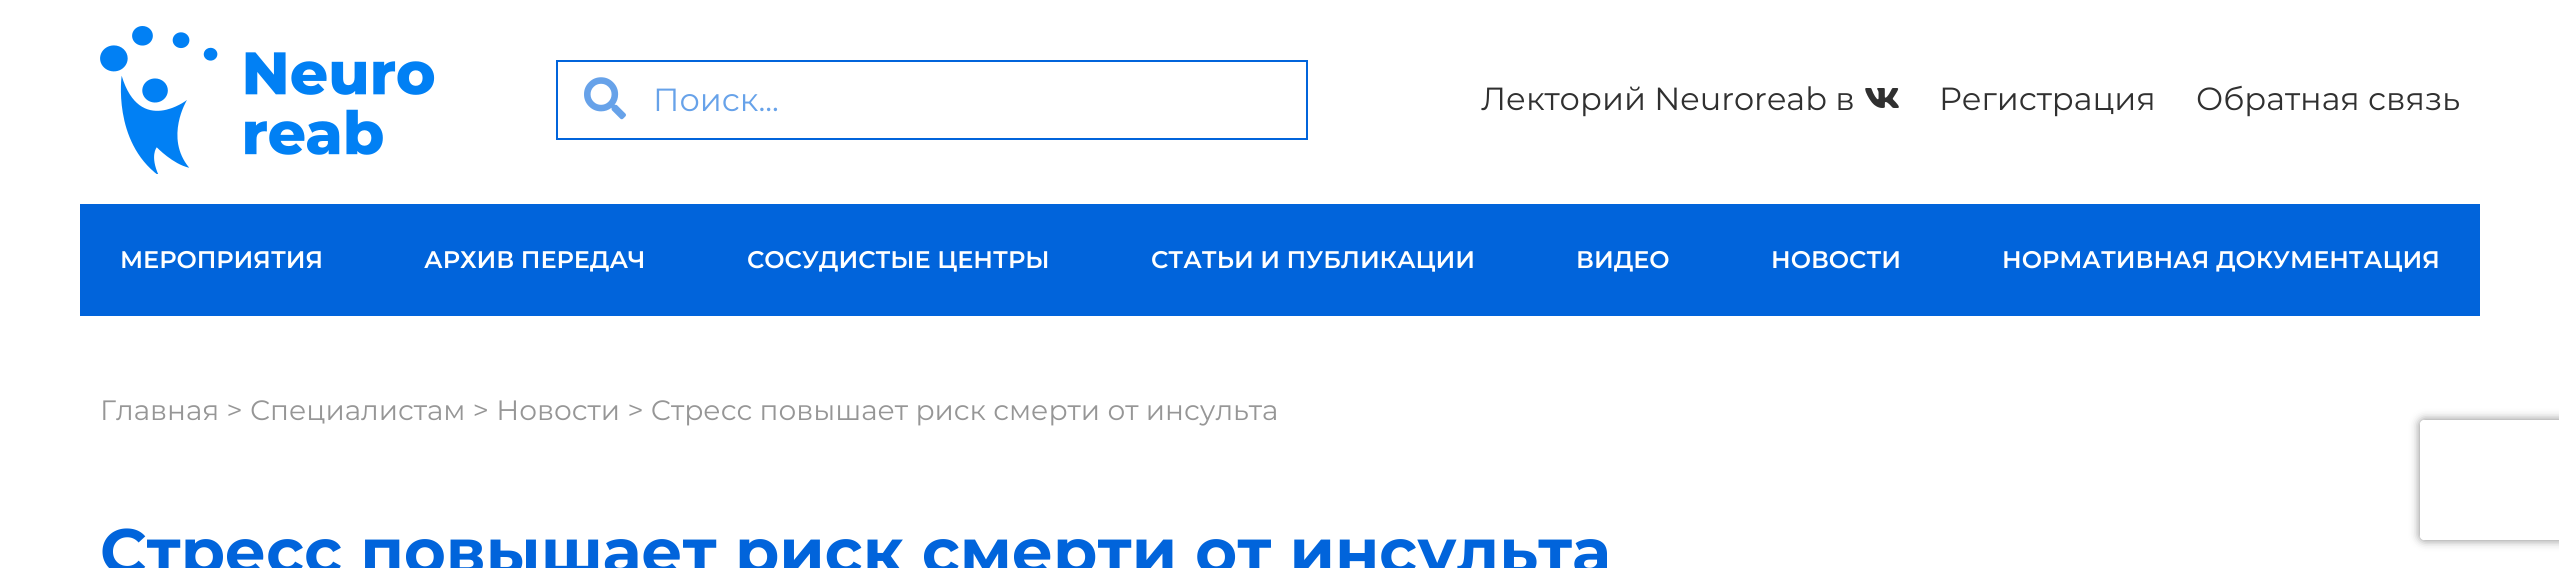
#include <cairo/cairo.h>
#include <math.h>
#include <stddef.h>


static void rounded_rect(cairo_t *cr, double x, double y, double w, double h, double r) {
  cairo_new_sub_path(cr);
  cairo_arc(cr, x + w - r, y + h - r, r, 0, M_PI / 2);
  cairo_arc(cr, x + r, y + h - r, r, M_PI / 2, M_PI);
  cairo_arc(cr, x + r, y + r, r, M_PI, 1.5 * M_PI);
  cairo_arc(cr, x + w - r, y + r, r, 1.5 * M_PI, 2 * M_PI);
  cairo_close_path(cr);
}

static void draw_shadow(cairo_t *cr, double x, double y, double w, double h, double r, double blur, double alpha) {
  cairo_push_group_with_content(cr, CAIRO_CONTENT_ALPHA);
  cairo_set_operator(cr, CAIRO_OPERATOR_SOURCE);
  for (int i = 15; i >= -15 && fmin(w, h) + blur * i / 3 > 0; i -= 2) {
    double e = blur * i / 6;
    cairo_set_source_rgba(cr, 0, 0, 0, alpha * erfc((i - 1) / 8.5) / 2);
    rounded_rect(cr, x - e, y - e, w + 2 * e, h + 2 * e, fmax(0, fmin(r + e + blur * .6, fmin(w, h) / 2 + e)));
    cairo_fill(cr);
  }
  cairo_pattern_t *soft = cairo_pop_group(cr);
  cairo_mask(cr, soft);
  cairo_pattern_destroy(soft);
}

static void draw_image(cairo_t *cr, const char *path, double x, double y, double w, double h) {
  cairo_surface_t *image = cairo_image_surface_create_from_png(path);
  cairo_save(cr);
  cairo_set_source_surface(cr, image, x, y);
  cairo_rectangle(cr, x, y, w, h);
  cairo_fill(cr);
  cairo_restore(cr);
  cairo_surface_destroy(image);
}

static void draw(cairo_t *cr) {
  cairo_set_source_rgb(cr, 1, 1, 1);
  cairo_paint(cr);
  draw_image(cr, "images/1.png", 100, 26, 335, 148);
  cairo_rectangle(cr, 557, 61, 750, 78);
  cairo_set_source_rgb(cr, 1 / 255.0, 100 / 255.0, 219 / 255.0);
  cairo_stroke(cr);
  draw_image(cr, "images/2.png", 584, 77, 42, 43);
  draw_image(cr, "images/3.png", 1865, 88, 34, 20);
  cairo_rectangle(cr, 80, 204, 2400, 112);
  cairo_fill(cr);
  cairo_save(cr);
  cairo_set_fill_rule(cr, CAIRO_FILL_RULE_EVEN_ODD);
  cairo_new_path(cr);
  cairo_move_to(cr, 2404, 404);
  cairo_line_to(cr, 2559, 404);
  cairo_line_to(cr, 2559, 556);
  cairo_line_to(cr, 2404, 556);
  cairo_close_path(cr);
  cairo_move_to(cr, 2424, 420);
  cairo_line_to(cr, 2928, 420);
  cairo_curve_to(cr, 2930, 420, 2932, 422, 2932, 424);
  cairo_line_to(cr, 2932, 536);
  cairo_curve_to(cr, 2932, 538, 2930, 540, 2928, 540);
  cairo_line_to(cr, 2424, 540);
  cairo_curve_to(cr, 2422, 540, 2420, 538, 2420, 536);
  cairo_line_to(cr, 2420, 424);
  cairo_curve_to(cr, 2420, 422, 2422, 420, 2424, 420);
  cairo_close_path(cr);
  cairo_clip(cr);
  cairo_set_source_rgb(cr, 128 / 255.0, 128 / 255.0, 128 / 255.0);
  draw_shadow(cr, 2420, 420, 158, 120, 4, 5, 1);
  cairo_restore(cr);
  cairo_select_font_face(cr, "Montserrat", CAIRO_FONT_SLANT_NORMAL, CAIRO_FONT_WEIGHT_NORMAL);
  cairo_set_font_size(cr, 32);
  cairo_set_source_rgb(cr, 103 / 255.0, 162 / 255.0, 233 / 255.0);
  cairo_move_to(cr, 653, 111);
  cairo_show_text(cr, "Поиск...");
  cairo_set_source_rgb(cr, 48 / 255.0, 48 / 255.0, 48 / 255.0);
  cairo_move_to(cr, 1481, 110);
  cairo_show_text(cr, "Лекторий Neuroreab в");
  cairo_move_to(cr, 1939, 110);
  cairo_show_text(cr, "Регистрация");
  cairo_move_to(cr, 2196, 110);
  cairo_show_text(cr, "Обратная связь");
  cairo_select_font_face(cr, "Montserrat SemiBold", CAIRO_FONT_SLANT_NORMAL, CAIRO_FONT_WEIGHT_NORMAL);
  cairo_set_font_size(cr, 24);
  cairo_set_source_rgb(cr, 1, 1, 1);
  cairo_move_to(cr, 120, 268);
  cairo_show_text(cr, "МЕРОПРИЯТИЯ");
  cairo_move_to(cr, 424, 268);
  cairo_show_text(cr, "АРХИВ ПЕРЕДАЧ");
  cairo_move_to(cr, 747, 268);
  cairo_show_text(cr, "СОСУДИСТЫЕ ЦЕНТРЫ");
  cairo_move_to(cr, 1151, 268);
  cairo_show_text(cr, "СТАТЬИ И ПУБЛИКАЦИИ");
  cairo_move_to(cr, 1576, 268);
  cairo_show_text(cr, "ВИДЕО");
  cairo_move_to(cr, 1771, 268);
  cairo_show_text(cr, "НОВОСТИ");
  cairo_move_to(cr, 2002, 268);
  cairo_show_text(cr, "НОРМАТИВНАЯ ДОКУМЕНТАЦИЯ");
  cairo_select_font_face(cr, "Montserrat", CAIRO_FONT_SLANT_NORMAL, CAIRO_FONT_WEIGHT_NORMAL);
  cairo_set_font_size(cr, 28);
  cairo_set_source_rgb(cr, 150 / 255.0, 150 / 255.0, 150 / 255.0);
  cairo_move_to(cr, 100, 420);
  cairo_show_text(cr, "Главная > Специалистам > Новости > Стресс повышает риск смерти от инсульта");
  cairo_select_font_face(cr, "Montserrat", CAIRO_FONT_SLANT_NORMAL, CAIRO_FONT_WEIGHT_BOLD);
  cairo_set_font_size(cr, 64);
  cairo_set_source_rgb(cr, 1 / 255.0, 100 / 255.0, 219 / 255.0);
  cairo_move_to(cr, 100, 574);
  cairo_show_text(cr, "Стресс повышает риск смерти от инсульта");
}

int main(void) {
  cairo_surface_t *surface = cairo_image_surface_create(CAIRO_FORMAT_RGB24, 2559, 568);
  cairo_t *cr = cairo_create(surface);
  cairo_font_options_t *options = cairo_font_options_create();
  cairo_font_options_set_hint_metrics(options, CAIRO_HINT_METRICS_OFF);
  cairo_font_options_set_hint_style(options, CAIRO_HINT_STYLE_NONE);
  cairo_set_font_options(cr, options);
  cairo_set_miter_limit(cr, 4);
  draw(cr);
  cairo_surface_write_to_png(surface, "out.png");
  cairo_font_options_destroy(options);
  cairo_destroy(cr);
  cairo_surface_destroy(surface);
  return 0;
}
